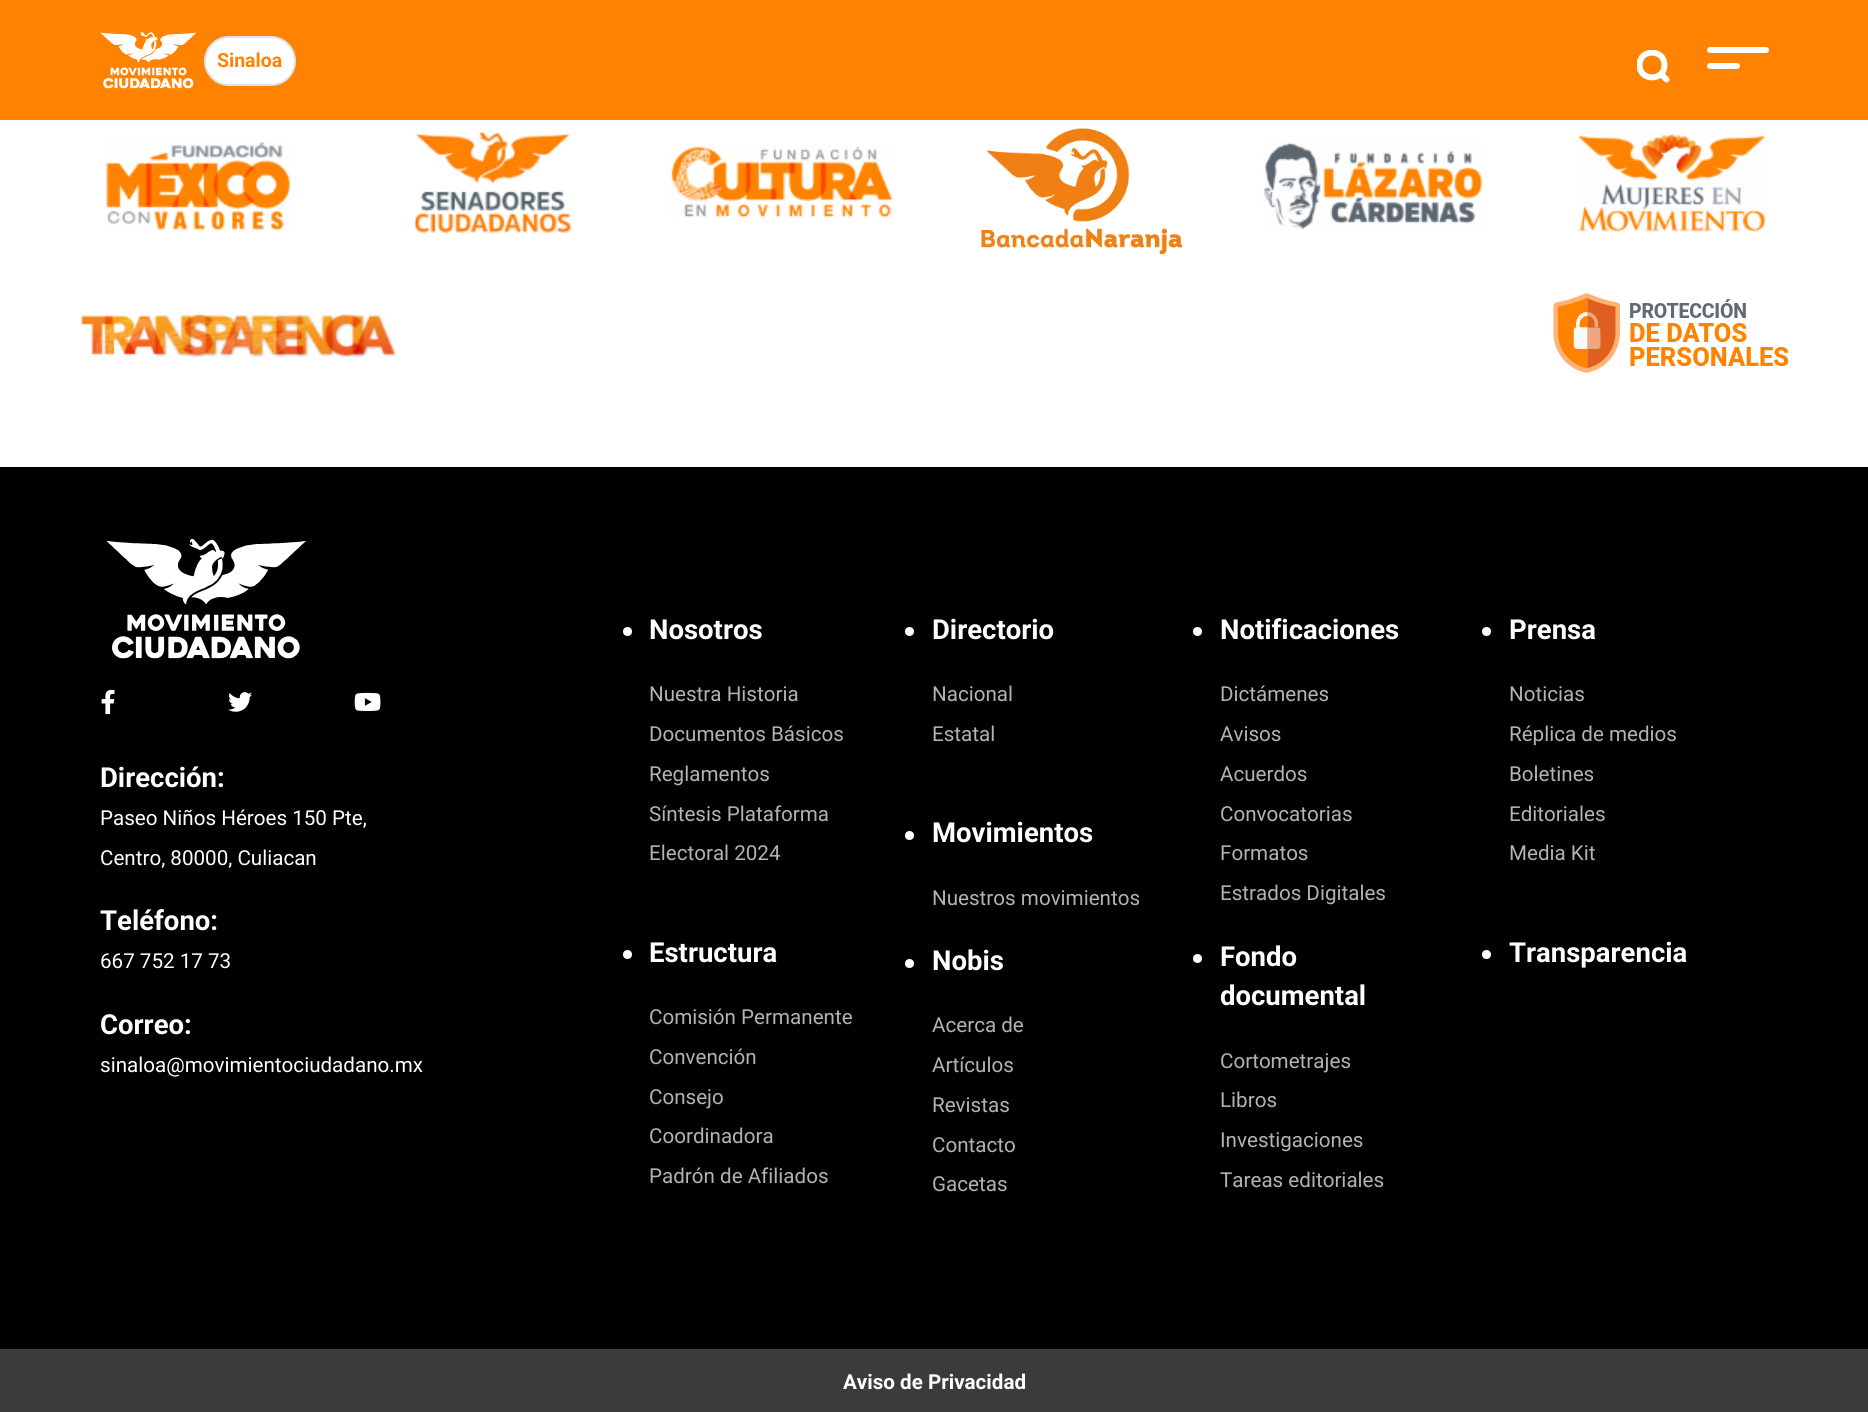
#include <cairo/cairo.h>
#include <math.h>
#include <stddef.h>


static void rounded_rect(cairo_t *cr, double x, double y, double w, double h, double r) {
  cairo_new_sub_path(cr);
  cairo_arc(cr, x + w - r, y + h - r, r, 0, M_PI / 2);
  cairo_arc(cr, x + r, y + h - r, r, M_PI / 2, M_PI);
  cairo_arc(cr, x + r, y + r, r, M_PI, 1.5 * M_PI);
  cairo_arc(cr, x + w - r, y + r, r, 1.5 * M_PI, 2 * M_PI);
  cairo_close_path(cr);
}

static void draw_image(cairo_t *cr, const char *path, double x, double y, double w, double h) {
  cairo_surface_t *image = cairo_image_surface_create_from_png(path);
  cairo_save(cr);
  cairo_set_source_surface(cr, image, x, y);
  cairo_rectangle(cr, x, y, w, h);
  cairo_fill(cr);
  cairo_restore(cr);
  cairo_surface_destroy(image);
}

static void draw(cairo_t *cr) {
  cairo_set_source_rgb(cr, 1, 1, 1);
  cairo_paint(cr);
  cairo_set_source_rgb(cr, 1, 131 / 255.0, 0);
  cairo_rectangle(cr, 0, 0, 1868, 120);
  cairo_fill(cr);
  draw_image(cr, "images/1.png", 101, 32, 96, 57);
  cairo_set_source_rgb(cr, 1, 1, 1);
  rounded_rect(cr, 205, 37, 90, 48, 24);
  cairo_fill_preserve(cr);
  cairo_set_source_rgb(cr, 222 / 255.0, 226 / 255.0, 230 / 255.0);
  cairo_stroke(cr);
  cairo_save(cr);
  cairo_rectangle(cr, 1637, 50, 34, 34);
  cairo_clip(cr);
  cairo_new_path(cr);
  cairo_move_to(cr, 1664.5, 65);
  cairo_curve_to(cr, 1664.5, 81.5, 1639.5, 81.5, 1639.5, 65);
  cairo_curve_to(cr, 1639.5, 48.5, 1664.5, 48.5, 1664.5, 65);
  cairo_close_path(cr);
  cairo_set_source_rgb(cr, 1, 1, 1);
  cairo_set_line_width(cr, 6);
  cairo_set_line_cap(cr, CAIRO_LINE_CAP_ROUND);
  cairo_set_line_join(cr, CAIRO_LINE_JOIN_ROUND);
  cairo_stroke(cr);
  cairo_restore(cr);
  cairo_new_path(cr);
  cairo_move_to(cr, 1666.5, 79.5);
  cairo_line_to(cr, 1661, 74);
  cairo_set_source_rgb(cr, 1, 1, 1);
  cairo_set_line_width(cr, 6);
  cairo_set_line_cap(cr, CAIRO_LINE_CAP_ROUND);
  cairo_set_line_join(cr, CAIRO_LINE_JOIN_ROUND);
  cairo_stroke(cr);
  rounded_rect(cr, 1707, 47, 62, 6, 3);
  cairo_fill(cr);
  rounded_rect(cr, 1707, 63, 33, 6, 3);
  cairo_fill(cr);
  draw_image(cr, "images/2.png", 105, 142, 186, 89);
  draw_image(cr, "images/3.png", 413, 131, 159, 102);
  draw_image(cr, "images/4.png", 670, 146, 223, 72);
  draw_image(cr, "images/5.png", 981, 128, 201, 127);
  draw_image(cr, "images/6.png", 1263, 142, 220, 88);
  draw_image(cr, "images/7.png", 1577, 134, 189, 98);
  draw_image(cr, "images/8.png", 80, 313, 317, 45);
  draw_image(cr, "images/9.png", 1553, 293, 236, 80);
  cairo_set_source_rgb(cr, 0, 0, 0);
  cairo_rectangle(cr, 0, 467, 1868, 882);
  cairo_fill(cr);
  draw_image(cr, "images/10.png", 107, 539, 199, 120);
  draw_image(cr, "images/11.png", 101, 689, 14, 25);
  draw_image(cr, "images/12.png", 228, 692, 24, 20);
  draw_image(cr, "images/13.png", 354, 692, 27, 19);
  cairo_set_source_rgb(cr, 1, 1, 1);
  cairo_arc(cr, 627.5, 631.5, 4.5, 0, 2 * M_PI);
  cairo_fill(cr);
  cairo_arc(cr, 627.5, 954.5, 4.5, 0, 2 * M_PI);
  cairo_fill(cr);
  cairo_arc(cr, 909.5, 631.5, 4.5, 0, 2 * M_PI);
  cairo_fill(cr);
  cairo_arc(cr, 909.5, 835.5, 4.5, 0, 2 * M_PI);
  cairo_fill(cr);
  cairo_arc(cr, 909.5, 963.5, 4.5, 0, 2 * M_PI);
  cairo_fill(cr);
  cairo_arc(cr, 1197.5, 631.5, 4.5, 0, 2 * M_PI);
  cairo_fill(cr);
  cairo_arc(cr, 1197.5, 958.5, 4.5, 0, 2 * M_PI);
  cairo_fill(cr);
  cairo_arc(cr, 1486.5, 631.5, 4.5, 0, 2 * M_PI);
  cairo_fill(cr);
  cairo_arc(cr, 1486.5, 954.5, 4.5, 0, 2 * M_PI);
  cairo_fill(cr);
  cairo_set_source_rgb(cr, 59 / 255.0, 59 / 255.0, 59 / 255.0);
  cairo_rectangle(cr, 0, 1349, 1868, 63);
  cairo_fill(cr);
  cairo_select_font_face(cr, "Roboto", CAIRO_FONT_SLANT_NORMAL, CAIRO_FONT_WEIGHT_BOLD);
  cairo_set_font_size(cr, 19.5);
  cairo_set_source_rgb(cr, 1, 131 / 255.0, 0);
  cairo_move_to(cr, 217, 67);
  cairo_show_text(cr, "Sinaloa");
  cairo_set_font_size(cr, 27.5);
  cairo_set_source_rgb(cr, 1, 1, 1);
  cairo_move_to(cr, 100, 787);
  cairo_show_text(cr, "Dirección:");
  cairo_select_font_face(cr, "Roboto", CAIRO_FONT_SLANT_NORMAL, CAIRO_FONT_WEIGHT_NORMAL);
  cairo_set_font_size(cr, 20.6);
  cairo_move_to(cr, 100, 825);
  cairo_show_text(cr, "Paseo Niños Héroes 150 Pte,");
  cairo_move_to(cr, 100, 865);
  cairo_show_text(cr, "Centro, 80000, Culiacan");
  cairo_select_font_face(cr, "Roboto", CAIRO_FONT_SLANT_NORMAL, CAIRO_FONT_WEIGHT_BOLD);
  cairo_set_font_size(cr, 27.5);
  cairo_move_to(cr, 100, 930);
  cairo_show_text(cr, "Teléfono:");
  cairo_select_font_face(cr, "Roboto", CAIRO_FONT_SLANT_NORMAL, CAIRO_FONT_WEIGHT_NORMAL);
  cairo_set_font_size(cr, 20.6);
  cairo_move_to(cr, 100, 968);
  cairo_show_text(cr, "667 752 17 73");
  cairo_select_font_face(cr, "Roboto", CAIRO_FONT_SLANT_NORMAL, CAIRO_FONT_WEIGHT_BOLD);
  cairo_set_font_size(cr, 27.5);
  cairo_move_to(cr, 100, 1034);
  cairo_show_text(cr, "Correo:");
  cairo_select_font_face(cr, "Roboto", CAIRO_FONT_SLANT_NORMAL, CAIRO_FONT_WEIGHT_NORMAL);
  cairo_set_font_size(cr, 20.6);
  cairo_move_to(cr, 100, 1072);
  cairo_show_text(cr, "sinaloa@movimientociudadano.mx");
  cairo_select_font_face(cr, "Roboto", CAIRO_FONT_SLANT_NORMAL, CAIRO_FONT_WEIGHT_BOLD);
  cairo_set_font_size(cr, 27.5);
  cairo_move_to(cr, 649, 639);
  cairo_show_text(cr, "Nosotros");
  cairo_select_font_face(cr, "Roboto", CAIRO_FONT_SLANT_NORMAL, CAIRO_FONT_WEIGHT_NORMAL);
  cairo_set_font_size(cr, 20.6);
  cairo_set_source_rgb(cr, 179 / 255.0, 179 / 255.0, 179 / 255.0);
  cairo_move_to(cr, 649, 701);
  cairo_show_text(cr, "Nuestra Historia");
  cairo_move_to(cr, 649, 741);
  cairo_show_text(cr, "Documentos Básicos");
  cairo_move_to(cr, 649, 781);
  cairo_show_text(cr, "Reglamentos");
  cairo_move_to(cr, 649, 821);
  cairo_show_text(cr, "Síntesis Plataforma");
  cairo_move_to(cr, 649, 860);
  cairo_show_text(cr, "Electoral 2024");
  cairo_select_font_face(cr, "Roboto", CAIRO_FONT_SLANT_NORMAL, CAIRO_FONT_WEIGHT_BOLD);
  cairo_set_font_size(cr, 27.5);
  cairo_set_source_rgb(cr, 1, 1, 1);
  cairo_move_to(cr, 649, 962);
  cairo_show_text(cr, "Estructura");
  cairo_select_font_face(cr, "Roboto", CAIRO_FONT_SLANT_NORMAL, CAIRO_FONT_WEIGHT_NORMAL);
  cairo_set_font_size(cr, 20.6);
  cairo_set_source_rgb(cr, 179 / 255.0, 179 / 255.0, 179 / 255.0);
  cairo_move_to(cr, 649, 1024);
  cairo_show_text(cr, "Comisión Permanente");
  cairo_move_to(cr, 649, 1064);
  cairo_show_text(cr, "Convención");
  cairo_move_to(cr, 649, 1104);
  cairo_show_text(cr, "Consejo");
  cairo_move_to(cr, 649, 1143);
  cairo_show_text(cr, "Coordinadora");
  cairo_move_to(cr, 649, 1183);
  cairo_show_text(cr, "Padrón de Afiliados");
  cairo_select_font_face(cr, "Roboto", CAIRO_FONT_SLANT_NORMAL, CAIRO_FONT_WEIGHT_BOLD);
  cairo_set_font_size(cr, 27.5);
  cairo_set_source_rgb(cr, 1, 1, 1);
  cairo_move_to(cr, 932, 639);
  cairo_show_text(cr, "Directorio");
  cairo_select_font_face(cr, "Roboto", CAIRO_FONT_SLANT_NORMAL, CAIRO_FONT_WEIGHT_NORMAL);
  cairo_set_font_size(cr, 20.6);
  cairo_set_source_rgb(cr, 179 / 255.0, 179 / 255.0, 179 / 255.0);
  cairo_move_to(cr, 932, 701);
  cairo_show_text(cr, "Nacional");
  cairo_move_to(cr, 932, 741);
  cairo_show_text(cr, "Estatal");
  cairo_select_font_face(cr, "Roboto", CAIRO_FONT_SLANT_NORMAL, CAIRO_FONT_WEIGHT_BOLD);
  cairo_set_font_size(cr, 27.5);
  cairo_set_source_rgb(cr, 1, 1, 1);
  cairo_move_to(cr, 932, 842);
  cairo_show_text(cr, "Movimientos");
  cairo_select_font_face(cr, "Roboto", CAIRO_FONT_SLANT_NORMAL, CAIRO_FONT_WEIGHT_NORMAL);
  cairo_set_font_size(cr, 20.6);
  cairo_set_source_rgb(cr, 179 / 255.0, 179 / 255.0, 179 / 255.0);
  cairo_move_to(cr, 932, 905);
  cairo_show_text(cr, "Nuestros movimientos");
  cairo_select_font_face(cr, "Roboto", CAIRO_FONT_SLANT_NORMAL, CAIRO_FONT_WEIGHT_BOLD);
  cairo_set_font_size(cr, 27.5);
  cairo_set_source_rgb(cr, 1, 1, 1);
  cairo_move_to(cr, 932, 970);
  cairo_show_text(cr, "Nobis");
  cairo_select_font_face(cr, "Roboto", CAIRO_FONT_SLANT_NORMAL, CAIRO_FONT_WEIGHT_NORMAL);
  cairo_set_font_size(cr, 20.6);
  cairo_set_source_rgb(cr, 179 / 255.0, 179 / 255.0, 179 / 255.0);
  cairo_move_to(cr, 932, 1032);
  cairo_show_text(cr, "Acerca de");
  cairo_move_to(cr, 932, 1072);
  cairo_show_text(cr, "Artículos");
  cairo_move_to(cr, 932, 1112);
  cairo_show_text(cr, "Revistas");
  cairo_move_to(cr, 932, 1152);
  cairo_show_text(cr, "Contacto");
  cairo_move_to(cr, 932, 1191);
  cairo_show_text(cr, "Gacetas");
  cairo_select_font_face(cr, "Roboto", CAIRO_FONT_SLANT_NORMAL, CAIRO_FONT_WEIGHT_BOLD);
  cairo_set_font_size(cr, 27.5);
  cairo_set_source_rgb(cr, 1, 1, 1);
  cairo_move_to(cr, 1220, 639);
  cairo_show_text(cr, "Notificaciones");
  cairo_select_font_face(cr, "Roboto", CAIRO_FONT_SLANT_NORMAL, CAIRO_FONT_WEIGHT_NORMAL);
  cairo_set_font_size(cr, 20.6);
  cairo_set_source_rgb(cr, 179 / 255.0, 179 / 255.0, 179 / 255.0);
  cairo_move_to(cr, 1220, 701);
  cairo_show_text(cr, "Dictámenes");
  cairo_move_to(cr, 1220, 741);
  cairo_show_text(cr, "Avisos");
  cairo_move_to(cr, 1220, 781);
  cairo_show_text(cr, "Acuerdos");
  cairo_move_to(cr, 1220, 821);
  cairo_show_text(cr, "Convocatorias");
  cairo_move_to(cr, 1220, 860);
  cairo_show_text(cr, "Formatos");
  cairo_move_to(cr, 1220, 900);
  cairo_show_text(cr, "Estrados Digitales");
  cairo_select_font_face(cr, "Roboto", CAIRO_FONT_SLANT_NORMAL, CAIRO_FONT_WEIGHT_BOLD);
  cairo_set_font_size(cr, 27.5);
  cairo_set_source_rgb(cr, 1, 1, 1);
  cairo_move_to(cr, 1220, 966);
  cairo_show_text(cr, "Fondo");
  cairo_move_to(cr, 1220, 1005);
  cairo_show_text(cr, "documental");
  cairo_select_font_face(cr, "Roboto", CAIRO_FONT_SLANT_NORMAL, CAIRO_FONT_WEIGHT_NORMAL);
  cairo_set_font_size(cr, 20.6);
  cairo_set_source_rgb(cr, 179 / 255.0, 179 / 255.0, 179 / 255.0);
  cairo_move_to(cr, 1220, 1068);
  cairo_show_text(cr, "Cortometrajes");
  cairo_move_to(cr, 1220, 1107);
  cairo_show_text(cr, "Libros");
  cairo_move_to(cr, 1220, 1147);
  cairo_show_text(cr, "Investigaciones");
  cairo_move_to(cr, 1220, 1187);
  cairo_show_text(cr, "Tareas editoriales");
  cairo_select_font_face(cr, "Roboto", CAIRO_FONT_SLANT_NORMAL, CAIRO_FONT_WEIGHT_BOLD);
  cairo_set_font_size(cr, 27.5);
  cairo_set_source_rgb(cr, 1, 1, 1);
  cairo_move_to(cr, 1509, 639);
  cairo_show_text(cr, "Prensa");
  cairo_select_font_face(cr, "Roboto", CAIRO_FONT_SLANT_NORMAL, CAIRO_FONT_WEIGHT_NORMAL);
  cairo_set_font_size(cr, 20.6);
  cairo_set_source_rgb(cr, 179 / 255.0, 179 / 255.0, 179 / 255.0);
  cairo_move_to(cr, 1509, 701);
  cairo_show_text(cr, "Noticias");
  cairo_move_to(cr, 1509, 741);
  cairo_show_text(cr, "Réplica de medios");
  cairo_move_to(cr, 1509, 781);
  cairo_show_text(cr, "Boletines");
  cairo_move_to(cr, 1509, 821);
  cairo_show_text(cr, "Editoriales");
  cairo_move_to(cr, 1509, 860);
  cairo_show_text(cr, "Media Kit");
  cairo_select_font_face(cr, "Roboto", CAIRO_FONT_SLANT_NORMAL, CAIRO_FONT_WEIGHT_BOLD);
  cairo_set_font_size(cr, 27.5);
  cairo_set_source_rgb(cr, 1, 1, 1);
  cairo_move_to(cr, 1509, 962);
  cairo_show_text(cr, "Transparencia");
  cairo_set_font_size(cr, 20.6);
  cairo_move_to(cr, 843, 1389);
  cairo_show_text(cr, "Aviso de Privacidad");
}

int main(void) {
  cairo_surface_t *surface = cairo_image_surface_create(CAIRO_FORMAT_RGB24, 1868, 1412);
  cairo_t *cr = cairo_create(surface);
  cairo_font_options_t *options = cairo_font_options_create();
  cairo_font_options_set_hint_metrics(options, CAIRO_HINT_METRICS_OFF);
  cairo_font_options_set_hint_style(options, CAIRO_HINT_STYLE_NONE);
  cairo_set_font_options(cr, options);
  cairo_set_miter_limit(cr, 4);
  draw(cr);
  cairo_surface_write_to_png(surface, "out.png");
  cairo_font_options_destroy(options);
  cairo_destroy(cr);
  cairo_surface_destroy(surface);
  return 0;
}
